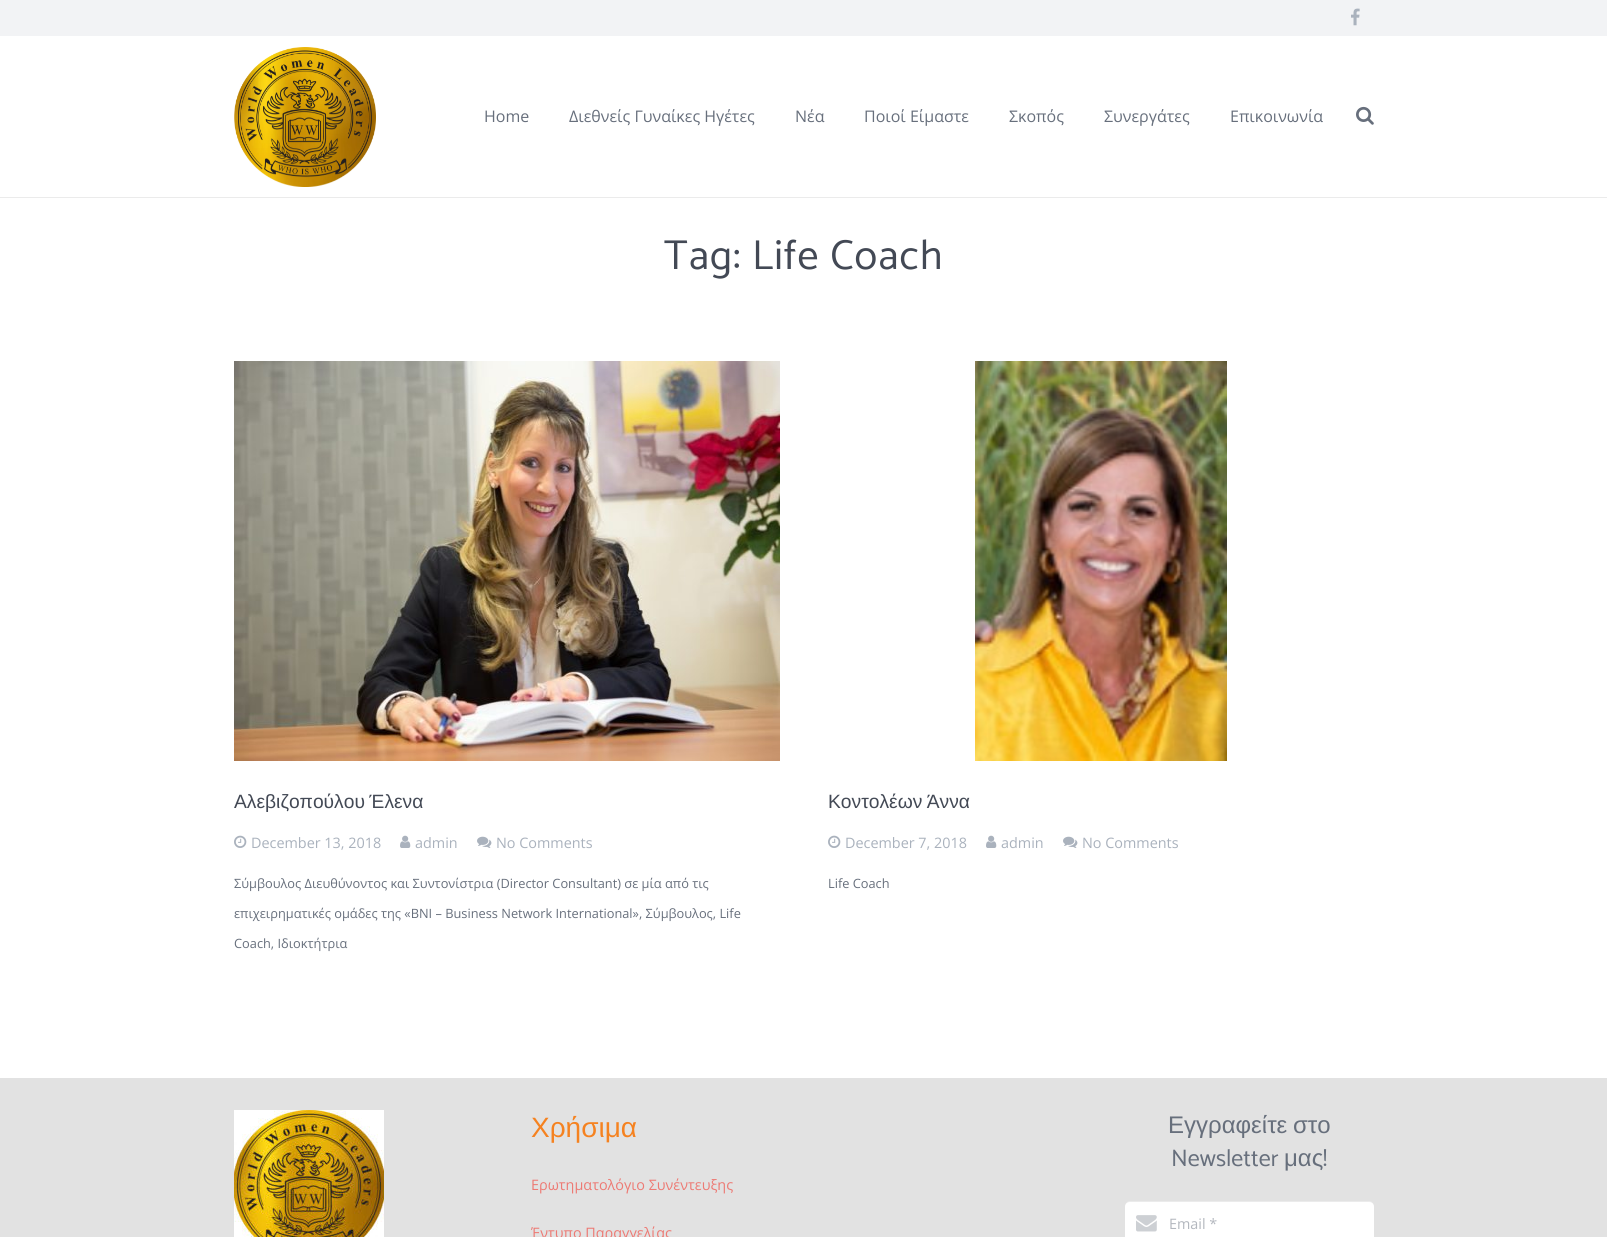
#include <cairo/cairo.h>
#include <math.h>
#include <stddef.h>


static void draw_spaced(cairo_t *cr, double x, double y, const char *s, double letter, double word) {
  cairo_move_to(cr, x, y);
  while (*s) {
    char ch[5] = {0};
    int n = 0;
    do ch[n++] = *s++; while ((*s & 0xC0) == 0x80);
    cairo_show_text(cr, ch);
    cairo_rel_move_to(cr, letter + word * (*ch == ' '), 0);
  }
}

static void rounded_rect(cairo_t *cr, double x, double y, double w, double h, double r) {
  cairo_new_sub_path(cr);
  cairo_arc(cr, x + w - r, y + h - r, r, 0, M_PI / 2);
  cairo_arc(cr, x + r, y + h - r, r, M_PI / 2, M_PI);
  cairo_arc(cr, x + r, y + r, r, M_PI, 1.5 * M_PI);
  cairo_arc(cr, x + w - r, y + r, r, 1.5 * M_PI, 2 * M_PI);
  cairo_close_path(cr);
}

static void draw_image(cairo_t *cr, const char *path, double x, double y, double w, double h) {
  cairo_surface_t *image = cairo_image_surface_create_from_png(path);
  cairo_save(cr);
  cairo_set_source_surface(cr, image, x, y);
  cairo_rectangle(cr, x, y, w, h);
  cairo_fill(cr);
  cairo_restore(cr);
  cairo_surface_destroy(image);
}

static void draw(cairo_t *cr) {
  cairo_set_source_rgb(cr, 1, 1, 1);
  cairo_paint(cr);
  cairo_set_source_rgb(cr, 242 / 255.0, 243 / 255.0, 245 / 255.0);
  cairo_rectangle(cr, 0, 0, 1607, 36);
  cairo_fill(cr);
  draw_image(cr, "images/1.png", 1351, 8, 9, 18);
  cairo_set_source_rgb(cr, 235 / 255.0, 235 / 255.0, 235 / 255.0);
  cairo_rectangle(cr, 0, 197, 1607, 1);
  cairo_fill(cr);
  draw_image(cr, "images/2.png", 234, 47, 142, 140);
  draw_image(cr, "images/3.png", 1356, 106, 18, 19);
  draw_image(cr, "images/4.png", 234, 361, 546, 400);
  draw_image(cr, "images/5.png", 234, 835, 13, 13);
  draw_image(cr, "images/6.png", 400, 835, 11, 13);
  draw_image(cr, "images/7.png", 477, 836, 15, 12);
  draw_image(cr, "images/8.png", 975, 361, 252, 400);
  draw_image(cr, "images/5.png", 828, 835, 13, 13);
  draw_image(cr, "images/6.png", 986, 835, 11, 13);
  draw_image(cr, "images/7.png", 1063, 836, 15, 12);
  cairo_set_source_rgb(cr, 226 / 255.0, 226 / 255.0, 226 / 255.0);
  cairo_rectangle(cr, 0, 1078, 1607, 159);
  cairo_fill(cr);
  draw_image(cr, "images/9.png", 234, 1110, 150, 127);
  cairo_set_source_rgb(cr, 1, 1, 1);
  rounded_rect(cr, 1125, 1201, 249, 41, 5);
  cairo_fill(cr);
  draw_image(cr, "images/10.png", 1136, 1215, 21, 17);
  cairo_set_source_rgba(cr, 0, 0, 0, 0.08);
  cairo_new_path(cr);
  cairo_move_to(cr, 1130, 1202);
  cairo_line_to(cr, 1369, 1202);
  cairo_curve_to(cr, 1372, 1202, 1374, 1204, 1374, 1207);
  cairo_line_to(cr, 1374, 1206);
  cairo_curve_to(cr, 1374, 1203, 1372, 1201, 1369, 1201);
  cairo_line_to(cr, 1130, 1201);
  cairo_curve_to(cr, 1127, 1201, 1125, 1203, 1125, 1206);
  cairo_line_to(cr, 1125, 1207);
  cairo_curve_to(cr, 1125, 1204, 1127, 1202, 1130, 1202);
  cairo_close_path(cr);
  cairo_fill(cr);
  cairo_select_font_face(cr, "Open Sans", CAIRO_FONT_SLANT_NORMAL, CAIRO_FONT_WEIGHT_NORMAL);
  cairo_set_font_size(cr, 16);
  cairo_set_source_rgb(cr, 103 / 255.0, 111 / 255.0, 124 / 255.0);
  cairo_move_to(cr, 484, 122);
  cairo_show_text(cr, "Home");
  cairo_move_to(cr, 569, 122);
  cairo_show_text(cr, "Διεθνείς Γυναίκες Ηγέτες");
  cairo_move_to(cr, 795, 122);
  cairo_show_text(cr, "Νέα");
  cairo_move_to(cr, 864, 122);
  cairo_show_text(cr, "Ποιοί Είμαστε");
  cairo_move_to(cr, 1009, 122);
  cairo_show_text(cr, "Σκοπός");
  cairo_move_to(cr, 1104, 122);
  cairo_show_text(cr, "Συνεργάτες");
  cairo_move_to(cr, 1230, 122);
  cairo_show_text(cr, "Επικοινωνία");
  cairo_select_font_face(cr, "Catamaran", CAIRO_FONT_SLANT_NORMAL, CAIRO_FONT_WEIGHT_NORMAL);
  cairo_set_font_size(cr, 42);
  cairo_set_source_rgb(cr, 67 / 255.0, 73 / 255.0, 85 / 255.0);
  draw_spaced(cr, 664, 269, "Tag: Life Coach", 1, 0);
  cairo_select_font_face(cr, "Liberation Sans", CAIRO_FONT_SLANT_NORMAL, CAIRO_FONT_WEIGHT_NORMAL);
  cairo_set_font_size(cr, 19.25);
  draw_spaced(cr, 234, 808, "Αλεβιζοπούλου Έλενα", 0, -1);
  cairo_select_font_face(cr, "Open Sans", CAIRO_FONT_SLANT_NORMAL, CAIRO_FONT_WEIGHT_NORMAL);
  cairo_set_font_size(cr, 14.4);
  cairo_set_source_rgb(cr, 170 / 255.0, 178 / 255.0, 189 / 255.0);
  cairo_move_to(cr, 251, 848);
  cairo_show_text(cr, "December 13, 2018");
  cairo_move_to(cr, 415, 848);
  cairo_show_text(cr, "admin");
  cairo_move_to(cr, 496, 848);
  cairo_show_text(cr, "No Comments");
  cairo_set_font_size(cr, 12.8);
  cairo_set_source_rgb(cr, 103 / 255.0, 111 / 255.0, 124 / 255.0);
  cairo_move_to(cr, 234, 888);
  cairo_show_text(cr, "Σύμβουλος Διευθύνοντος και Συντονίστρια (Director Consultant) σε μία από τις");
  cairo_move_to(cr, 234, 918);
  cairo_show_text(cr, "επιχειρηματικές ομάδες της «ΒΝΙ – Business Network International», Σύμβουλος, Life");
  cairo_move_to(cr, 234, 948);
  cairo_show_text(cr, "Coach, Ιδιοκτήτρια");
  cairo_select_font_face(cr, "Liberation Sans", CAIRO_FONT_SLANT_NORMAL, CAIRO_FONT_WEIGHT_NORMAL);
  cairo_set_font_size(cr, 19.25);
  cairo_set_source_rgb(cr, 67 / 255.0, 73 / 255.0, 85 / 255.0);
  draw_spaced(cr, 828, 808, "Κοντολέων Άννα", 0, -1);
  cairo_select_font_face(cr, "Open Sans", CAIRO_FONT_SLANT_NORMAL, CAIRO_FONT_WEIGHT_NORMAL);
  cairo_set_font_size(cr, 14.4);
  cairo_set_source_rgb(cr, 170 / 255.0, 178 / 255.0, 189 / 255.0);
  cairo_move_to(cr, 845, 848);
  cairo_show_text(cr, "December 7, 2018");
  cairo_move_to(cr, 1001, 848);
  cairo_show_text(cr, "admin");
  cairo_move_to(cr, 1082, 848);
  cairo_show_text(cr, "No Comments");
  cairo_set_font_size(cr, 12.8);
  cairo_set_source_rgb(cr, 103 / 255.0, 111 / 255.0, 124 / 255.0);
  cairo_move_to(cr, 828, 888);
  cairo_show_text(cr, "Life Coach");
  cairo_select_font_face(cr, "Liberation Sans", CAIRO_FONT_SLANT_NORMAL, CAIRO_FONT_WEIGHT_NORMAL);
  cairo_set_font_size(cr, 28);
  cairo_set_source_rgb(cr, 245 / 255.0, 130 / 255.0, 32 / 255.0);
  cairo_move_to(cr, 531, 1137);
  cairo_show_text(cr, "Χρήσιμα");
  cairo_select_font_face(cr, "Open Sans", CAIRO_FONT_SLANT_NORMAL, CAIRO_FONT_WEIGHT_NORMAL);
  cairo_set_font_size(cr, 14.4);
  cairo_set_source_rgb(cr, 237 / 255.0, 122 / 255.0, 116 / 255.0);
  cairo_move_to(cr, 531, 1190);
  cairo_show_text(cr, "Ερωτηματολόγιο Συνέντευξης");
  cairo_move_to(cr, 531, 1238);
  cairo_show_text(cr, "Έντυπο Παραγγελίας");
  cairo_select_font_face(cr, "Liberation Sans", CAIRO_FONT_SLANT_NORMAL, CAIRO_FONT_WEIGHT_NORMAL);
  cairo_set_font_size(cr, 24);
  cairo_set_source_rgb(cr, 103 / 255.0, 111 / 255.0, 124 / 255.0);
  draw_spaced(cr, 1168, 1133, "Εγγραφείτε στο", 0, -1);
  cairo_select_font_face(cr, "Catamaran", CAIRO_FONT_SLANT_NORMAL, CAIRO_FONT_WEIGHT_NORMAL);
  cairo_move_to(cr, 1171, 1166);
  cairo_show_text(cr, "Newsletter");
  cairo_select_font_face(cr, "Liberation Sans", CAIRO_FONT_SLANT_NORMAL, CAIRO_FONT_WEIGHT_NORMAL);
  cairo_move_to(cr, 1284, 1166);
  cairo_show_text(cr, "μας");
  cairo_select_font_face(cr, "Catamaran", CAIRO_FONT_SLANT_NORMAL, CAIRO_FONT_WEIGHT_NORMAL);
  cairo_move_to(cr, 1323, 1166);
  cairo_show_text(cr, "!");
  cairo_select_font_face(cr, "Open Sans", CAIRO_FONT_SLANT_NORMAL, CAIRO_FONT_WEIGHT_NORMAL);
  cairo_set_font_size(cr, 14.4);
  cairo_set_source_rgb(cr, 179 / 255.0, 183 / 255.0, 190 / 255.0);
  cairo_move_to(cr, 1169, 1229);
  cairo_show_text(cr, "Email *");
}

int main(void) {
  cairo_surface_t *surface = cairo_image_surface_create(CAIRO_FORMAT_RGB24, 1607, 1237);
  cairo_t *cr = cairo_create(surface);
  cairo_font_options_t *options = cairo_font_options_create();
  cairo_font_options_set_hint_metrics(options, CAIRO_HINT_METRICS_OFF);
  cairo_font_options_set_hint_style(options, CAIRO_HINT_STYLE_NONE);
  cairo_set_font_options(cr, options);
  cairo_set_miter_limit(cr, 4);
  draw(cr);
  cairo_surface_write_to_png(surface, "out.png");
  cairo_font_options_destroy(options);
  cairo_destroy(cr);
  cairo_surface_destroy(surface);
  return 0;
}
